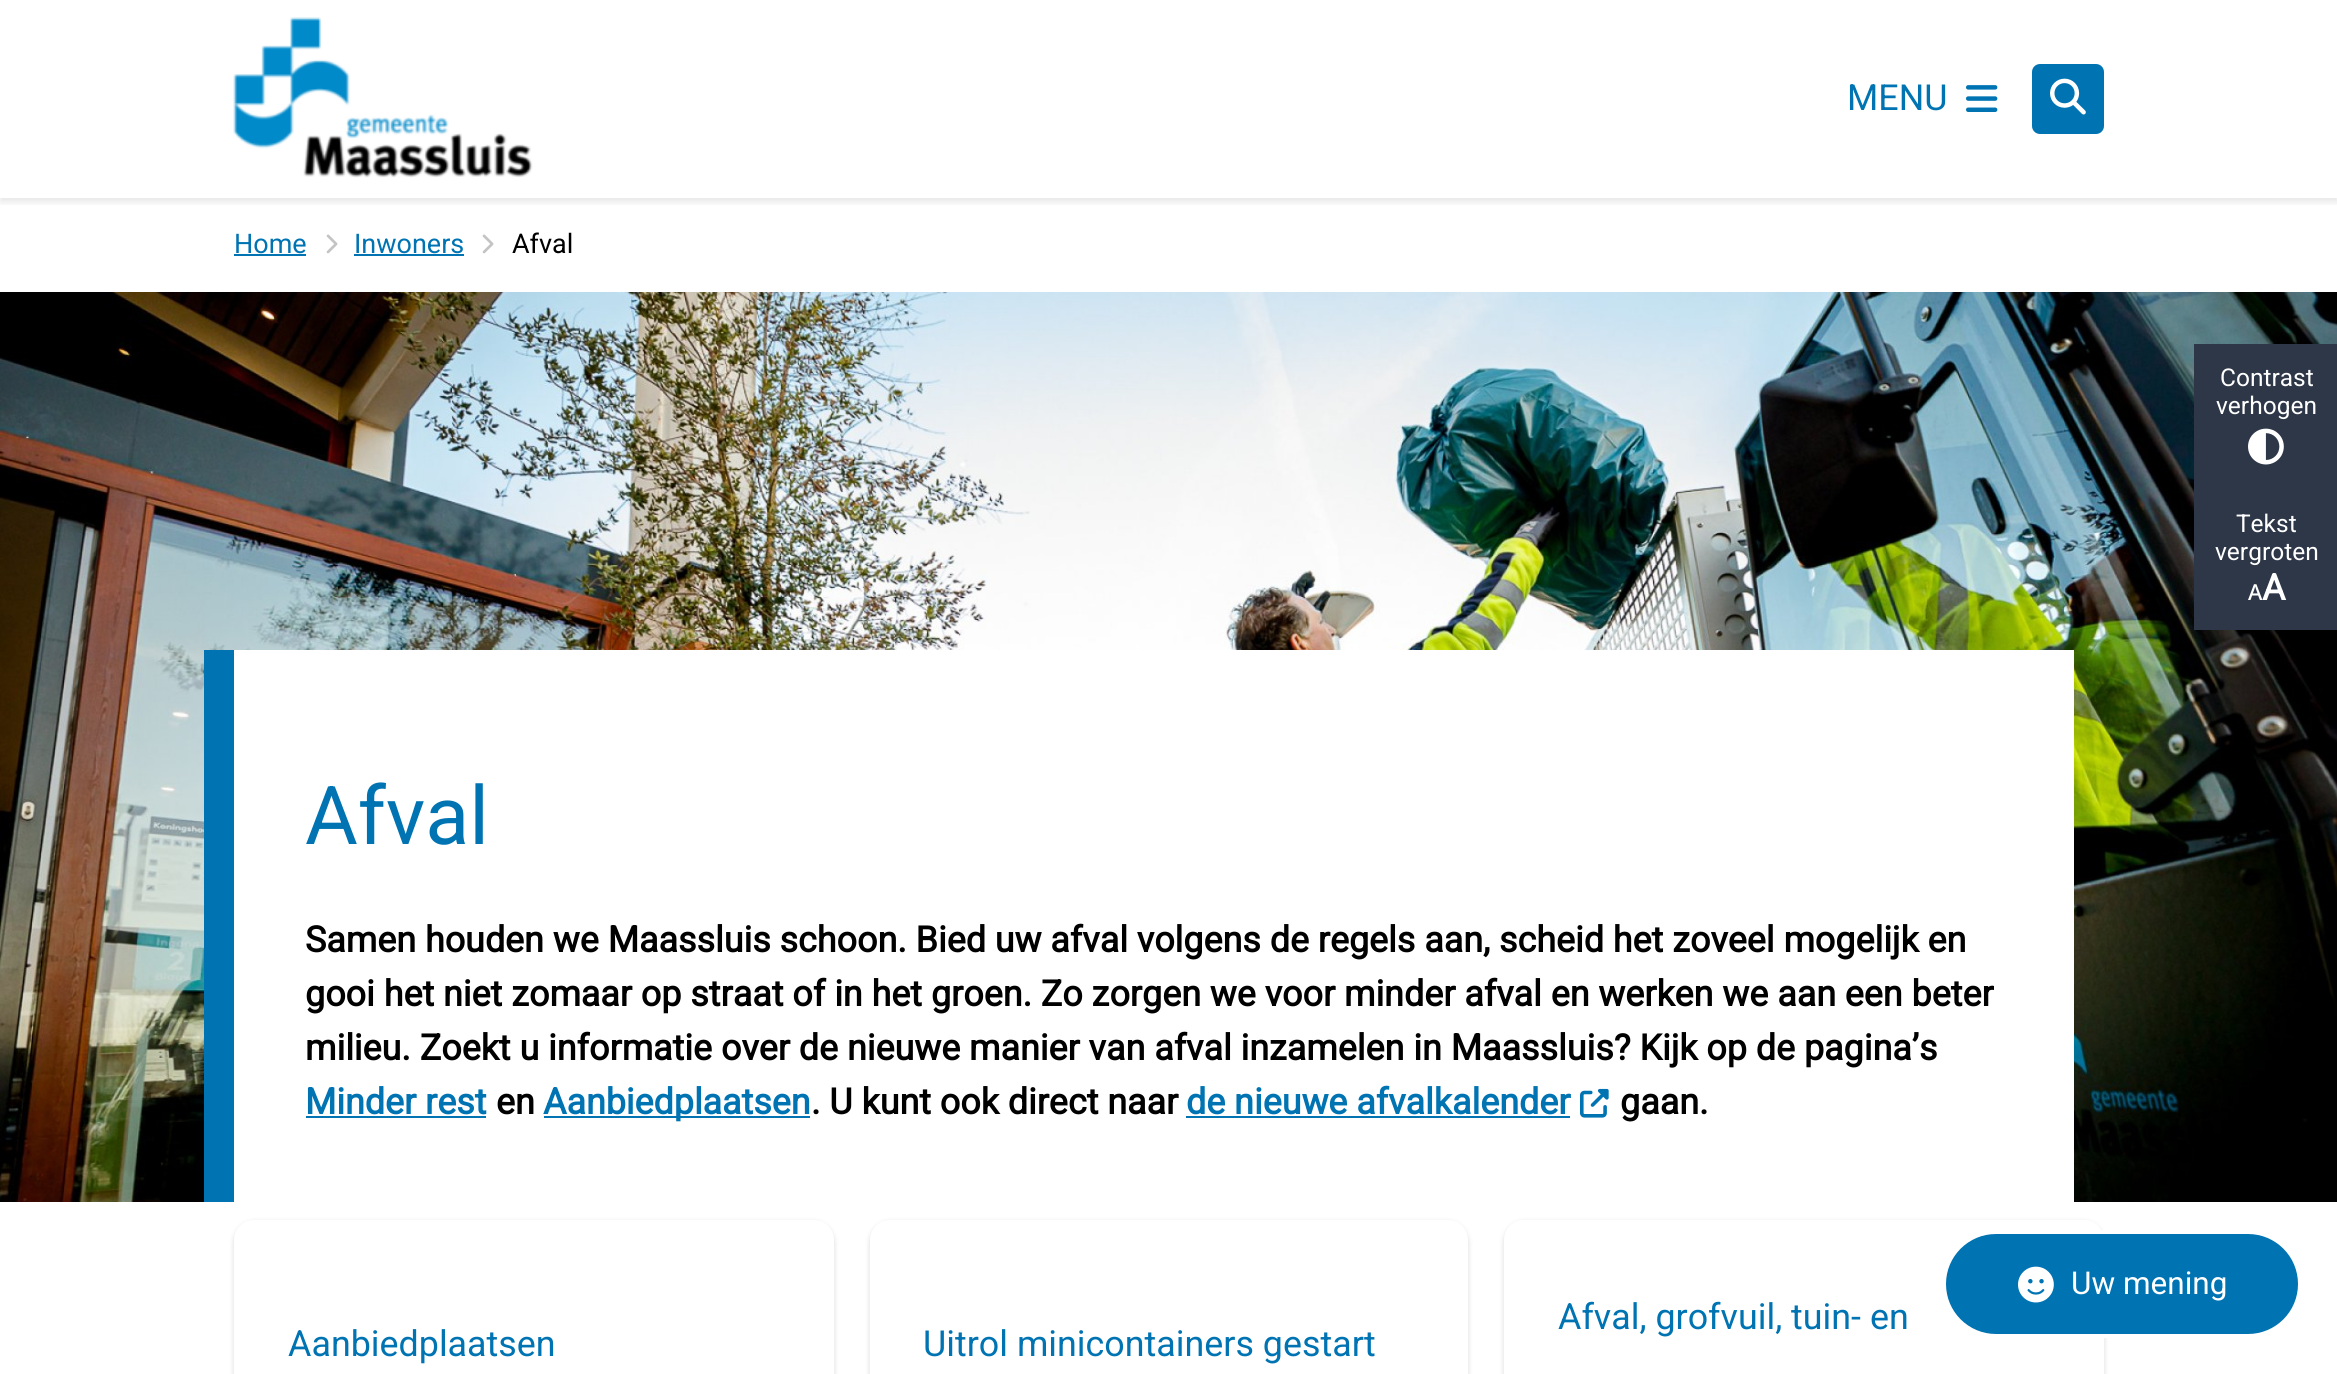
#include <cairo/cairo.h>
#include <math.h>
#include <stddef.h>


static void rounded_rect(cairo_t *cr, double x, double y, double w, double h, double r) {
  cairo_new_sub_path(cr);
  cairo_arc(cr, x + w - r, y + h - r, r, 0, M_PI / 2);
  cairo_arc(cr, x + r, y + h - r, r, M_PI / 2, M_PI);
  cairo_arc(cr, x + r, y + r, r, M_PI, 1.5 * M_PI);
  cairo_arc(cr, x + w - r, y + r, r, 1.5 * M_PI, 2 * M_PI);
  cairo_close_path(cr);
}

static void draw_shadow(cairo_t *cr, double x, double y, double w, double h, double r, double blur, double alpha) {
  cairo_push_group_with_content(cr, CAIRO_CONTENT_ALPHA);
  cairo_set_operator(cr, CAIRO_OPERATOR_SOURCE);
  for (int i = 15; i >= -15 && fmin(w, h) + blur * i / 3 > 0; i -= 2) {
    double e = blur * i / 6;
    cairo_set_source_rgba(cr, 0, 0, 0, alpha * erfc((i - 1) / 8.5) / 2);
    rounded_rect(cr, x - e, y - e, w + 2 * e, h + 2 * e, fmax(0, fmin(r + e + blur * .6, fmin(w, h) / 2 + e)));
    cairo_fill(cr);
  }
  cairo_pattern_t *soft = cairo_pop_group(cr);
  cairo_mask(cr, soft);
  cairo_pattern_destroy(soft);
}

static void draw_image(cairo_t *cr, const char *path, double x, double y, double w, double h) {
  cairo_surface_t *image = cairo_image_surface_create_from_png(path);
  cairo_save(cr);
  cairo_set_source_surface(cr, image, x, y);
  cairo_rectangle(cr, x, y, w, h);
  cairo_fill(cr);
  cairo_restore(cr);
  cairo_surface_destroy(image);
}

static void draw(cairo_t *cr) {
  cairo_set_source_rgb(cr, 1, 1, 1);
  cairo_paint(cr);
  cairo_save(cr);
  cairo_rectangle(cr, 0, 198, 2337, 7);
  cairo_clip(cr);
  cairo_set_source_rgb(cr, 0, 0, 0);
  draw_shadow(cr, 0, 4, 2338, 198, 0, 4, 0.1);
  cairo_restore(cr);
  draw_image(cr, "images/1.png", 233, 17, 300, 161);
  draw_image(cr, "images/2.png", 1966, 85, 32, 27);
  cairo_set_source_rgb(cr, 0, 115 / 255.0, 178 / 255.0);
  rounded_rect(cr, 2032, 64, 72, 70, 8);
  cairo_fill(cr);
  draw_image(cr, "images/3.png", 2050, 78, 36, 37);
  cairo_rectangle(cr, 234, 254, 72, 2);
  cairo_fill(cr);
  draw_image(cr, "images/4.png", 326, 234, 12, 20);
  cairo_rectangle(cr, 354, 254, 110, 2);
  cairo_fill(cr);
  draw_image(cr, "images/4.png", 482, 234, 12, 20);
  draw_image(cr, "images/5.png", 0, 292, 2337, 910);
  cairo_set_source_rgb(cr, 1, 1, 1);
  cairo_rectangle(cr, 234, 650, 1840, 552);
  cairo_fill(cr);
  cairo_set_source_rgb(cr, 0, 115 / 255.0, 178 / 255.0);
  cairo_rectangle(cr, 204, 650, 30, 552);
  cairo_fill(cr);
  cairo_rectangle(cr, 306, 1116, 180, 2);
  cairo_fill(cr);
  cairo_rectangle(cr, 544, 1116, 266, 2);
  cairo_fill(cr);
  cairo_rectangle(cr, 1186, 1116, 384, 2);
  cairo_fill(cr);
  draw_image(cr, "images/6.png", 1580, 1088, 29, 30);
  cairo_set_source_rgb(cr, 0, 0, 0);
  draw_shadow(cr, 1504, 1222, 600, 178, 20, 2, 0.06);
  draw_shadow(cr, 1504, 1222, 600, 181, 20, 3, 0.1);
  cairo_set_source_rgb(cr, 1, 1, 1);
  rounded_rect(cr, 1504, 1220, 600, 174, 20);
  cairo_fill(cr);
  cairo_set_source_rgb(cr, 0, 0, 0);
  draw_shadow(cr, 234, 1222, 600, 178, 20, 2, 0.06);
  draw_shadow(cr, 234, 1222, 600, 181, 20, 3, 0.1);
  cairo_set_source_rgb(cr, 1, 1, 1);
  rounded_rect(cr, 234, 1220, 600, 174, 20);
  cairo_fill(cr);
  cairo_set_source_rgb(cr, 0, 0, 0);
  draw_shadow(cr, 870, 1222, 598, 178, 20, 2, 0.06);
  draw_shadow(cr, 870, 1222, 598, 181, 20, 3, 0.1);
  cairo_set_source_rgb(cr, 1, 1, 1);
  rounded_rect(cr, 870, 1220, 598, 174, 20);
  cairo_fill(cr);
  cairo_set_source_rgb(cr, 45 / 255.0, 55 / 255.0, 72 / 255.0);
  cairo_rectangle(cr, 2194, 344, 143, 286);
  cairo_fill(cr);
  draw_image(cr, "images/7.png", 2248, 428, 36, 37);
  cairo_set_source_rgb(cr, 0, 115 / 255.0, 178 / 255.0);
  rounded_rect(cr, 1944, 1232, 356, 104, 52);
  cairo_fill_preserve(cr);
  cairo_set_source_rgb(cr, 1, 1, 1);
  cairo_set_line_width(cr, 4);
  cairo_stroke(cr);
  draw_image(cr, "images/8.png", 2018, 1266, 36, 37);
  cairo_select_font_face(cr, "Roboto", CAIRO_FONT_SLANT_NORMAL, CAIRO_FONT_WEIGHT_NORMAL);
  cairo_set_font_size(cr, 35.85);
  cairo_set_source_rgb(cr, 0, 115 / 255.0, 178 / 255.0);
  cairo_move_to(cr, 1847, 110);
  cairo_show_text(cr, "MENU");
  cairo_set_font_size(cr, 27);
  cairo_move_to(cr, 234, 253);
  cairo_show_text(cr, "Home");
  cairo_move_to(cr, 354, 253);
  cairo_show_text(cr, "Inwoners");
  cairo_set_source_rgb(cr, 0, 0, 0);
  cairo_move_to(cr, 512, 253);
  cairo_show_text(cr, "Afval");
  cairo_set_font_size(cr, 81);
  cairo_set_source_rgb(cr, 0, 115 / 255.0, 178 / 255.0);
  cairo_move_to(cr, 305, 844);
  cairo_show_text(cr, "Afval");
  cairo_select_font_face(cr, "Roboto", CAIRO_FONT_SLANT_NORMAL, CAIRO_FONT_WEIGHT_BOLD);
  cairo_set_font_size(cr, 35.85);
  cairo_set_source_rgb(cr, 0, 0, 0);
  cairo_move_to(cr, 305, 952);
  cairo_show_text(cr, "Samen houden we Maassluis schoon. Bied uw afval volgens de regels aan, scheid het zoveel mogelijk en");
  cairo_move_to(cr, 305, 1006);
  cairo_show_text(cr, "gooi het niet zomaar op straat of in het groen. Zo zorgen we voor minder afval en werken we aan een beter");
  cairo_move_to(cr, 305, 1060);
  cairo_show_text(cr, "milieu. Zoekt u informatie over de nieuwe manier van afval inzamelen in Maassluis? Kijk op de pagina’s");
  cairo_set_source_rgb(cr, 0, 115 / 255.0, 178 / 255.0);
  cairo_move_to(cr, 305, 1114);
  cairo_show_text(cr, "Minder rest");
  cairo_set_source_rgb(cr, 0, 0, 0);
  cairo_move_to(cr, 496, 1114);
  cairo_show_text(cr, "en");
  cairo_set_source_rgb(cr, 0, 115 / 255.0, 178 / 255.0);
  cairo_move_to(cr, 543, 1114);
  cairo_show_text(cr, "Aanbiedplaatsen");
  cairo_set_source_rgb(cr, 0, 0, 0);
  cairo_move_to(cr, 811, 1114);
  cairo_show_text(cr, ". U kunt ook direct naar");
  cairo_set_source_rgb(cr, 0, 115 / 255.0, 178 / 255.0);
  cairo_move_to(cr, 1186, 1114);
  cairo_show_text(cr, "de nieuwe afvalkalender");
  cairo_set_source_rgb(cr, 0, 0, 0);
  cairo_move_to(cr, 1620, 1114);
  cairo_show_text(cr, "gaan.");
  cairo_select_font_face(cr, "Roboto", CAIRO_FONT_SLANT_NORMAL, CAIRO_FONT_WEIGHT_NORMAL);
  cairo_set_source_rgb(cr, 0, 115 / 255.0, 178 / 255.0);
  cairo_move_to(cr, 1558, 1329);
  cairo_show_text(cr, "Afval, grofvuil, tuin- en");
  cairo_move_to(cr, 288, 1356);
  cairo_show_text(cr, "Aanbiedplaatsen");
  cairo_move_to(cr, 923, 1356);
  cairo_show_text(cr, "Uitrol minicontainers gestart");
  cairo_set_font_size(cr, 24.5);
  cairo_set_source_rgb(cr, 1, 1, 1);
  cairo_move_to(cr, 2220, 386);
  cairo_show_text(cr, "Contrast");
  cairo_move_to(cr, 2216, 414);
  cairo_show_text(cr, "verhogen");
  cairo_move_to(cr, 2236, 532);
  cairo_show_text(cr, "Tekst");
  cairo_move_to(cr, 2215, 560);
  cairo_show_text(cr, "vergroten");
  cairo_select_font_face(cr, "Noto Sans Medium", CAIRO_FONT_SLANT_NORMAL, CAIRO_FONT_WEIGHT_NORMAL);
  cairo_set_font_size(cr, 22);
  cairo_move_to(cr, 2248, 600);
  cairo_show_text(cr, "A");
  cairo_select_font_face(cr, "Roboto", CAIRO_FONT_SLANT_NORMAL, CAIRO_FONT_WEIGHT_BOLD);
  cairo_set_font_size(cr, 35.85);
  cairo_move_to(cr, 2262, 600);
  cairo_show_text(cr, "A");
  cairo_select_font_face(cr, "Roboto", CAIRO_FONT_SLANT_NORMAL, CAIRO_FONT_WEIGHT_NORMAL);
  cairo_set_font_size(cr, 31.5);
  cairo_move_to(cr, 2071, 1294);
  cairo_show_text(cr, "Uw mening");
}

int main(void) {
  cairo_surface_t *surface = cairo_image_surface_create(CAIRO_FORMAT_RGB24, 2337, 1374);
  cairo_t *cr = cairo_create(surface);
  cairo_font_options_t *options = cairo_font_options_create();
  cairo_font_options_set_hint_metrics(options, CAIRO_HINT_METRICS_OFF);
  cairo_font_options_set_hint_style(options, CAIRO_HINT_STYLE_NONE);
  cairo_set_font_options(cr, options);
  cairo_set_miter_limit(cr, 4);
  draw(cr);
  cairo_surface_write_to_png(surface, "out.png");
  cairo_font_options_destroy(options);
  cairo_destroy(cr);
  cairo_surface_destroy(surface);
  return 0;
}
